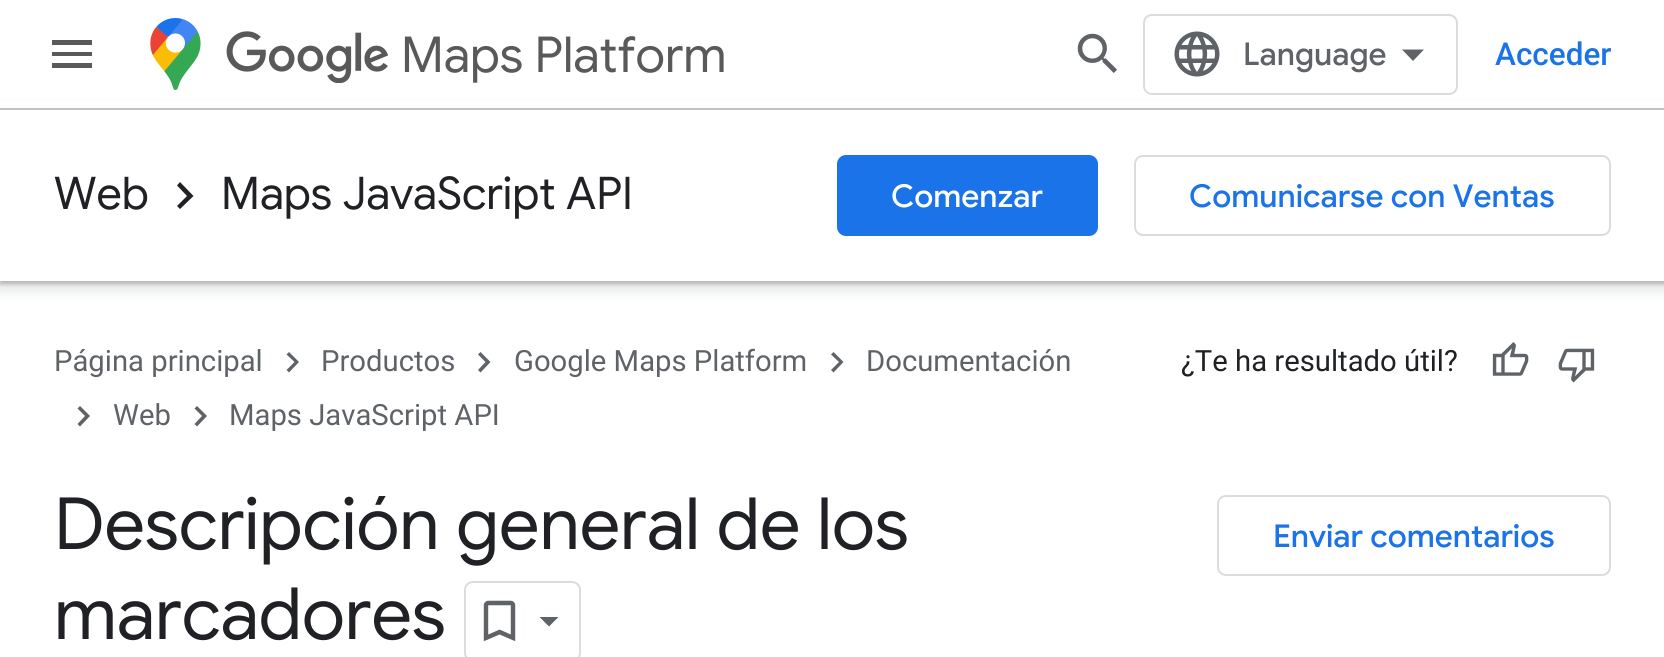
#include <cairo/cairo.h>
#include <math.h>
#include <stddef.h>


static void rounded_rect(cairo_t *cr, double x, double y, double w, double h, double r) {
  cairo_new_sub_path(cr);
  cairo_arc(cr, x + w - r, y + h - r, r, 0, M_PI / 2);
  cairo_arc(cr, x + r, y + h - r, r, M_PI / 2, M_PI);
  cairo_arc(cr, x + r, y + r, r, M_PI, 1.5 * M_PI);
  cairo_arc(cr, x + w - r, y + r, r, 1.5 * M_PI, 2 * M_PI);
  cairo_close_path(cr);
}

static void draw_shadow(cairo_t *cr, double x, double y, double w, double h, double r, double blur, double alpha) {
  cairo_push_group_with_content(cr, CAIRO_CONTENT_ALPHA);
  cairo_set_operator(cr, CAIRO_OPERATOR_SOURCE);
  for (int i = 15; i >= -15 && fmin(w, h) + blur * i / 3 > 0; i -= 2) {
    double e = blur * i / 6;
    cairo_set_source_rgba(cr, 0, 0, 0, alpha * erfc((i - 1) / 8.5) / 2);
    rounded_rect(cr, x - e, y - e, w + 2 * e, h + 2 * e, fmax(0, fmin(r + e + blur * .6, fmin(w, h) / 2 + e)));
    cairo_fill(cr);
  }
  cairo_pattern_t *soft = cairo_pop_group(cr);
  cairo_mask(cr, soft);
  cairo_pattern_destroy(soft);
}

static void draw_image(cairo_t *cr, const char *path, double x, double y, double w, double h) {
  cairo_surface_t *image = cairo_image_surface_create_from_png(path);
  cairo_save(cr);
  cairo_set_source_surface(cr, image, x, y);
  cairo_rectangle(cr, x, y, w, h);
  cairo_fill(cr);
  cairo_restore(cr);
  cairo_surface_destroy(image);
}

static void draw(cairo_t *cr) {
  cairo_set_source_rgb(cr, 1, 1, 1);
  cairo_paint(cr);
  cairo_set_source_rgb(cr, 60 / 255.0, 64 / 255.0, 67 / 255.0);
  draw_shadow(cr, -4, 110, 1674, 180, 0, 7, 0.15);
  draw_shadow(cr, 0, 113, 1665, 171, 0, 2, 0.3);
  cairo_set_source_rgb(cr, 1, 1, 1);
  cairo_rectangle(cr, 0, 101, 1664, 7);
  cairo_fill(cr);
  cairo_set_source_rgb(cr, 189 / 255.0, 193 / 255.0, 198 / 255.0);
  cairo_rectangle(cr, 0, 108, 1664, 2);
  cairo_fill(cr);
  cairo_set_source_rgb(cr, 89 / 255.0, 89 / 255.0, 89 / 255.0);
  cairo_new_path(cr);
  cairo_move_to(cr, 52, 40);
  cairo_line_to(cr, 92, 40);
  cairo_line_to(cr, 92, 45);
  cairo_line_to(cr, 52, 45);
  cairo_close_path(cr);
  cairo_move_to(cr, 52, 56);
  cairo_line_to(cr, 52, 52);
  cairo_line_to(cr, 92, 52);
  cairo_line_to(cr, 92, 56);
  cairo_close_path(cr);
  cairo_move_to(cr, 52, 68);
  cairo_line_to(cr, 52, 63);
  cairo_line_to(cr, 92, 63);
  cairo_line_to(cr, 92, 68);
  cairo_close_path(cr);
  cairo_fill(cr);
  draw_image(cr, "images/1.png", 150, 18, 51, 72);
  draw_image(cr, "images/2.png", 226, 31, 163, 52);
  draw_image(cr, "images/3.png", 1077, 33, 40, 40);
  rounded_rect(cr, 1144, 15, 313, 79, 8);
  cairo_set_source_rgb(cr, 218 / 255.0, 220 / 255.0, 224 / 255.0);
  cairo_stroke(cr);
  draw_image(cr, "images/4.png", 1174, 31, 46, 46);
  cairo_set_source_rgb(cr, 95 / 255.0, 99 / 255.0, 104 / 255.0);
  cairo_new_path(cr);
  cairo_move_to(cr, 1413, 61);
  cairo_line_to(cr, 1402, 49.5);
  cairo_line_to(cr, 1424, 49.5);
  cairo_close_path(cr);
  cairo_fill(cr);
  cairo_set_source_rgb(cr, 1, 1, 1);
  cairo_rectangle(cr, 0, 110, 1664, 171);
  cairo_fill(cr);
  cairo_set_source_rgb(cr, 32 / 255.0, 33 / 255.0, 36 / 255.0);
  cairo_new_path(cr);
  cairo_move_to(cr, 180, 182);
  cairo_line_to(cr, 193.5, 196);
  cairo_line_to(cr, 180, 209);
  cairo_line_to(cr, 177, 206);
  cairo_line_to(cr, 187, 196);
  cairo_line_to(cr, 177, 185.5);
  cairo_close_path(cr);
  cairo_fill(cr);
  cairo_set_source_rgb(cr, 26 / 255.0, 115 / 255.0, 232 / 255.0);
  rounded_rect(cr, 837, 155, 261, 81, 9);
  cairo_fill(cr);
  rounded_rect(cr, 1135, 156, 475, 79, 8);
  cairo_set_source_rgb(cr, 218 / 255.0, 220 / 255.0, 224 / 255.0);
  cairo_stroke(cr);
  cairo_set_source_rgb(cr, 95 / 255.0, 99 / 255.0, 104 / 255.0);
  cairo_new_path(cr);
  cairo_move_to(cr, 289, 352);
  cairo_line_to(cr, 299, 362);
  cairo_line_to(cr, 289, 372.5);
  cairo_line_to(cr, 286.5, 370);
  cairo_line_to(cr, 294.5, 362);
  cairo_line_to(cr, 286.5, 354.5);
  cairo_close_path(cr);
  cairo_fill(cr);
  cairo_new_path(cr);
  cairo_move_to(cr, 480.5, 352);
  cairo_line_to(cr, 490.5, 362);
  cairo_line_to(cr, 480.5, 372.5);
  cairo_line_to(cr, 478, 370);
  cairo_line_to(cr, 485.5, 362);
  cairo_line_to(cr, 478, 354.5);
  cairo_close_path(cr);
  cairo_fill(cr);
  cairo_new_path(cr);
  cairo_move_to(cr, 833.5, 352);
  cairo_line_to(cr, 843.5, 362);
  cairo_line_to(cr, 833.5, 372.5);
  cairo_line_to(cr, 831, 370);
  cairo_line_to(cr, 839, 362);
  cairo_line_to(cr, 831, 354.5);
  cairo_close_path(cr);
  cairo_fill(cr);
  cairo_new_path(cr);
  cairo_move_to(cr, 80, 406);
  cairo_line_to(cr, 90, 416);
  cairo_line_to(cr, 80, 426.5);
  cairo_line_to(cr, 77.5, 424);
  cairo_line_to(cr, 85, 416);
  cairo_line_to(cr, 77.5, 408.5);
  cairo_close_path(cr);
  cairo_fill(cr);
  cairo_new_path(cr);
  cairo_move_to(cr, 197, 406);
  cairo_line_to(cr, 207, 416);
  cairo_line_to(cr, 197, 426.5);
  cairo_line_to(cr, 194.5, 424);
  cairo_line_to(cr, 202, 416);
  cairo_line_to(cr, 194.5, 408.5);
  cairo_close_path(cr);
  cairo_fill(cr);
  draw_image(cr, "images/5.png", 1492, 342, 37, 34);
  draw_image(cr, "images/6.png", 1558, 348, 37, 35);
  rounded_rect(cr, 465, 582, 115, 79, 8);
  cairo_set_source_rgb(cr, 218 / 255.0, 220 / 255.0, 224 / 255.0);
  cairo_stroke(cr);
  draw_image(cr, "images/7.png", 483, 600, 33, 42);
  cairo_set_source_rgb(cr, 95 / 255.0, 99 / 255.0, 104 / 255.0);
  cairo_new_path(cr);
  cairo_move_to(cr, 539.5, 617);
  cairo_line_to(cr, 558.5, 617);
  cairo_line_to(cr, 549, 626.5);
  cairo_close_path(cr);
  cairo_fill(cr);
  rounded_rect(cr, 1218, 496, 392, 79, 8);
  cairo_set_source_rgb(cr, 218 / 255.0, 220 / 255.0, 224 / 255.0);
  cairo_stroke(cr);
  cairo_select_font_face(cr, "Google Sans", CAIRO_FONT_SLANT_NORMAL, CAIRO_FONT_WEIGHT_NORMAL);
  cairo_set_font_size(cr, 49.5);
  cairo_set_source_rgb(cr, 89 / 255.0, 89 / 255.0, 89 / 255.0);
  cairo_move_to(cr, 401, 72);
  cairo_show_text(cr, "Maps Platform");
  cairo_select_font_face(cr, "Google Sans Medium", CAIRO_FONT_SLANT_NORMAL, CAIRO_FONT_WEIGHT_NORMAL);
  cairo_set_font_size(cr, 31.5);
  cairo_set_source_rgb(cr, 95 / 255.0, 99 / 255.0, 104 / 255.0);
  cairo_move_to(cr, 1243, 65);
  cairo_show_text(cr, "Language");
  cairo_select_font_face(cr, "Roboto Medium", CAIRO_FONT_SLANT_NORMAL, CAIRO_FONT_WEIGHT_NORMAL);
  cairo_set_source_rgb(cr, 26 / 255.0, 115 / 255.0, 232 / 255.0);
  cairo_move_to(cr, 1495, 65);
  cairo_show_text(cr, "Acceder");
  cairo_select_font_face(cr, "Google Sans", CAIRO_FONT_SLANT_NORMAL, CAIRO_FONT_WEIGHT_NORMAL);
  cairo_set_font_size(cr, 45);
  cairo_set_source_rgb(cr, 32 / 255.0, 33 / 255.0, 36 / 255.0);
  cairo_move_to(cr, 54, 209);
  cairo_show_text(cr, "Web");
  cairo_move_to(cr, 221, 209);
  cairo_show_text(cr, "Maps JavaScript API");
  cairo_select_font_face(cr, "Google Sans Medium", CAIRO_FONT_SLANT_NORMAL, CAIRO_FONT_WEIGHT_NORMAL);
  cairo_set_font_size(cr, 31.5);
  cairo_set_source_rgb(cr, 1, 1, 1);
  cairo_move_to(cr, 891, 207);
  cairo_show_text(cr, "Comenzar");
  cairo_set_source_rgb(cr, 26 / 255.0, 115 / 255.0, 232 / 255.0);
  cairo_move_to(cr, 1189, 207);
  cairo_show_text(cr, "Comunicarse con Ventas");
  cairo_select_font_face(cr, "Roboto", CAIRO_FONT_SLANT_NORMAL, CAIRO_FONT_WEIGHT_NORMAL);
  cairo_set_font_size(cr, 29.25);
  cairo_set_source_rgb(cr, 95 / 255.0, 99 / 255.0, 104 / 255.0);
  cairo_move_to(cr, 54, 371);
  cairo_show_text(cr, "Página principal");
  cairo_move_to(cr, 321, 371);
  cairo_show_text(cr, "Productos");
  cairo_move_to(cr, 514, 371);
  cairo_show_text(cr, "Google Maps Platform");
  cairo_move_to(cr, 866, 371);
  cairo_show_text(cr, "Documentación");
  cairo_move_to(cr, 113, 425);
  cairo_show_text(cr, "Web");
  cairo_move_to(cr, 229, 425);
  cairo_show_text(cr, "Maps JavaScript API");
  cairo_set_source_rgb(cr, 32 / 255.0, 33 / 255.0, 36 / 255.0);
  cairo_move_to(cr, 1181, 371);
  cairo_show_text(cr, "¿Te ha resultado útil?");
  cairo_select_font_face(cr, "Google Sans", CAIRO_FONT_SLANT_NORMAL, CAIRO_FONT_WEIGHT_NORMAL);
  cairo_set_font_size(cr, 72);
  cairo_move_to(cr, 54, 549);
  cairo_show_text(cr, "Descripción general de los");
  cairo_move_to(cr, 54, 639);
  cairo_show_text(cr, "marcadores");
  cairo_select_font_face(cr, "Google Sans Medium", CAIRO_FONT_SLANT_NORMAL, CAIRO_FONT_WEIGHT_NORMAL);
  cairo_set_font_size(cr, 31.5);
  cairo_set_source_rgb(cr, 26 / 255.0, 115 / 255.0, 232 / 255.0);
  cairo_move_to(cr, 1273, 547);
  cairo_show_text(cr, "Enviar comentarios");
}

int main(void) {
  cairo_surface_t *surface = cairo_image_surface_create(CAIRO_FORMAT_RGB24, 1664, 657);
  cairo_t *cr = cairo_create(surface);
  cairo_font_options_t *options = cairo_font_options_create();
  cairo_font_options_set_hint_metrics(options, CAIRO_HINT_METRICS_OFF);
  cairo_font_options_set_hint_style(options, CAIRO_HINT_STYLE_NONE);
  cairo_set_font_options(cr, options);
  cairo_set_miter_limit(cr, 4);
  draw(cr);
  cairo_surface_write_to_png(surface, "out.png");
  cairo_font_options_destroy(options);
  cairo_destroy(cr);
  cairo_surface_destroy(surface);
  return 0;
}
